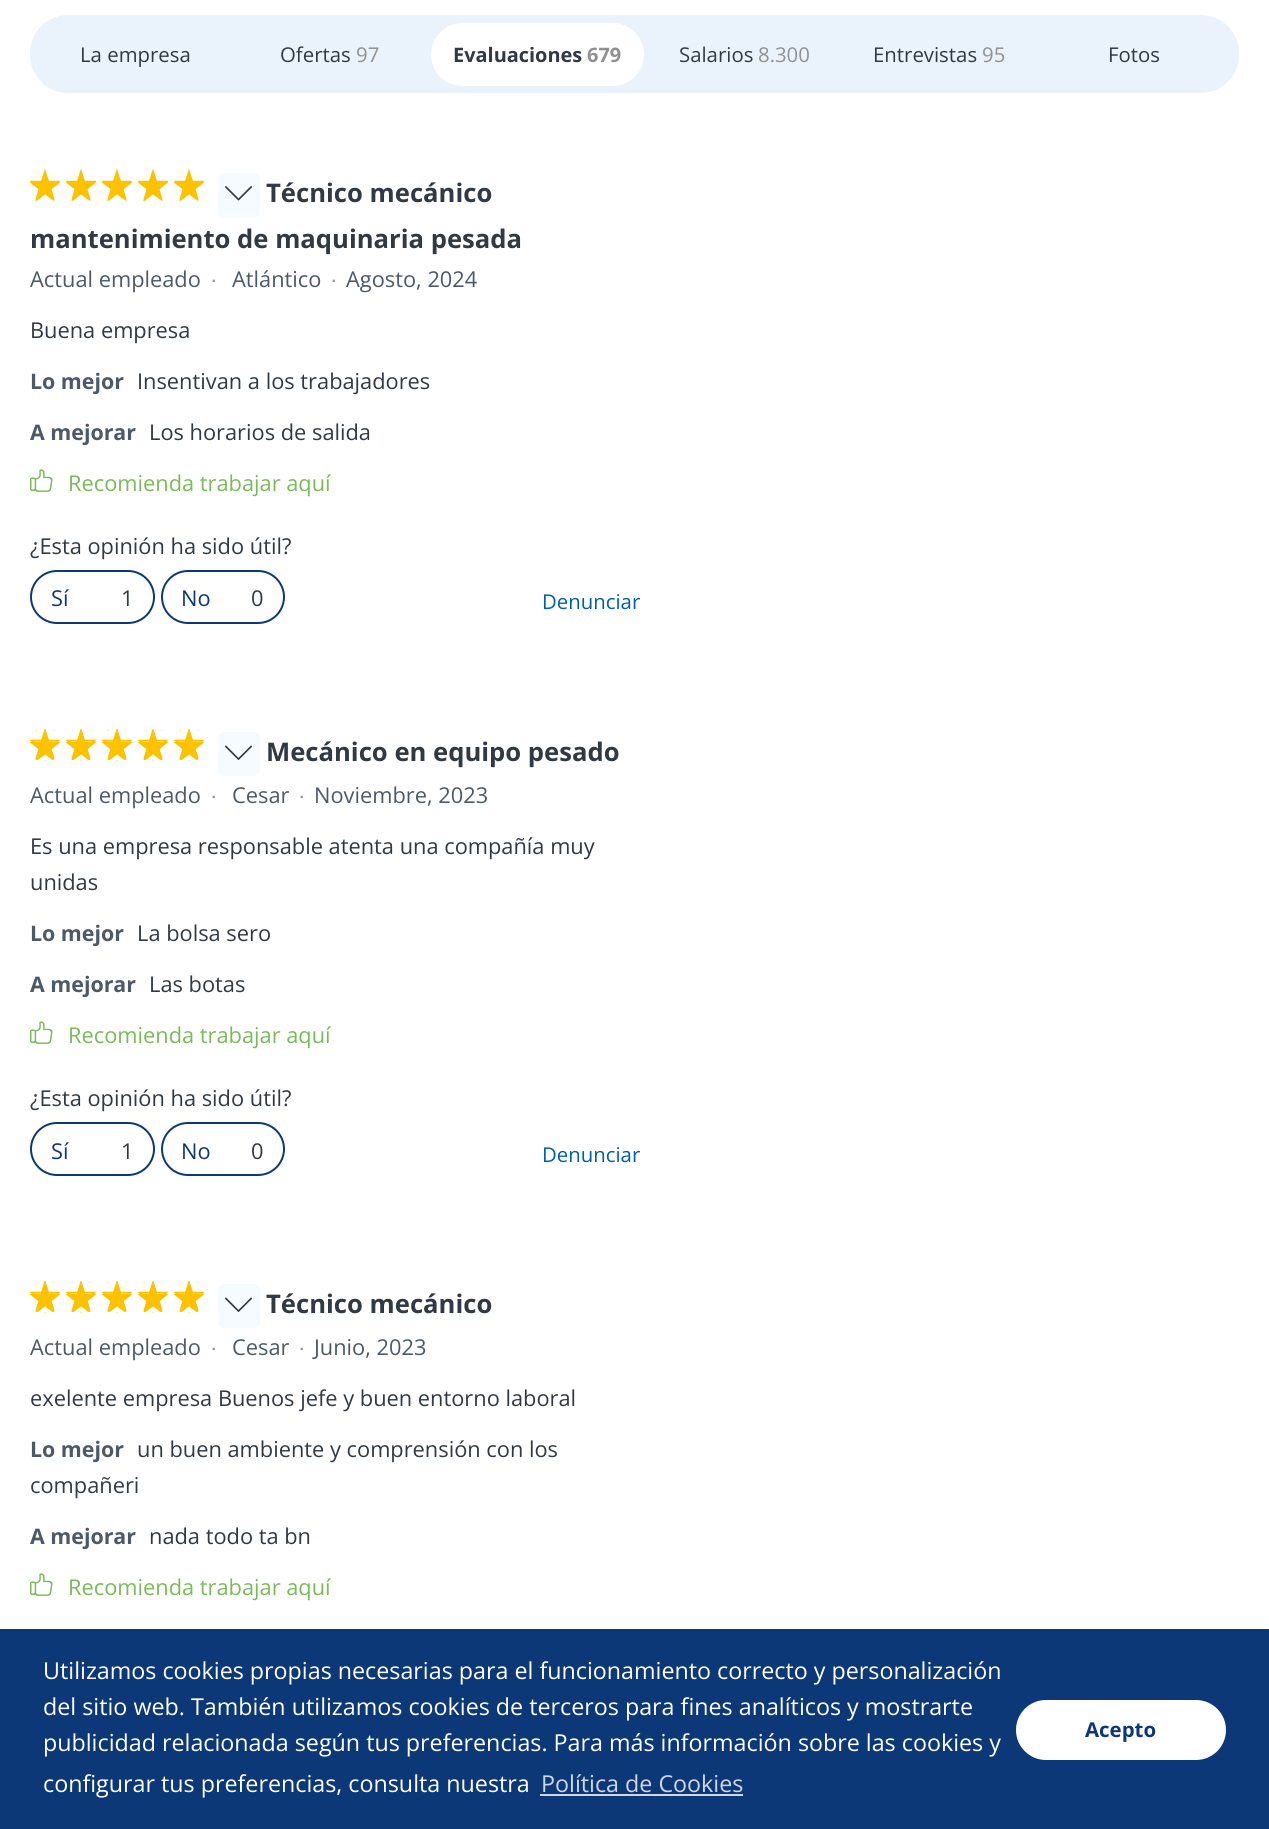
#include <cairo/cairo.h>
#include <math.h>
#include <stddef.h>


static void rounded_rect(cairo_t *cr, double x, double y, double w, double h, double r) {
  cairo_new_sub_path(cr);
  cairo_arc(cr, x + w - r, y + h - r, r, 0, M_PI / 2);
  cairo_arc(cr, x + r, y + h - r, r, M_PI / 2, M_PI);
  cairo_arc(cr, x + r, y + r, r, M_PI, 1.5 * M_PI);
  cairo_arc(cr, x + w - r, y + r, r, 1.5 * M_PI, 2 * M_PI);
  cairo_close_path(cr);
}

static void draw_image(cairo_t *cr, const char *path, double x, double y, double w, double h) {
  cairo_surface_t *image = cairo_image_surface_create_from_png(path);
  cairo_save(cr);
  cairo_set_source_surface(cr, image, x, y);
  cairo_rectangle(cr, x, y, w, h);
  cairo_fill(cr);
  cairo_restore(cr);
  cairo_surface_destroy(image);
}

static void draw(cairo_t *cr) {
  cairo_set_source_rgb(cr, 1, 1, 1);
  cairo_paint(cr);
  cairo_set_source_rgb(cr, 234 / 255.0, 243 / 255.0, 251 / 255.0);
  rounded_rect(cr, 30, 15, 1209, 78, 38);
  cairo_fill(cr);
  cairo_set_source_rgb(cr, 1, 1, 1);
  rounded_rect(cr, 431, 23, 213, 63, 31.5);
  cairo_fill(cr);
  draw_image(cr, "images/1.png", 30, 169, 174, 31);
  draw_image(cr, "images/2.png", 30, 171, 174, 30);
  cairo_set_source_rgb(cr, 246 / 255.0, 251 / 255.0, 1);
  rounded_rect(cr, 218, 173, 42, 45, 6);
  cairo_fill(cr);
  draw_image(cr, "images/3.png", 225, 186, 27, 15);
  draw_image(cr, "images/4.png", 30, 469, 23, 23);
  rounded_rect(cr, 31, 571, 123, 52, 26);
  cairo_set_source_rgb(cr, 13 / 255.0, 56 / 255.0, 120 / 255.0);
  cairo_stroke(cr);
  rounded_rect(cr, 162, 571, 122, 52, 26);
  cairo_stroke(cr);
  draw_image(cr, "images/5.png", 30, 729, 174, 30);
  draw_image(cr, "images/6.png", 30, 730, 174, 31);
  cairo_set_source_rgb(cr, 246 / 255.0, 251 / 255.0, 1);
  rounded_rect(cr, 218, 732, 42, 44, 6);
  cairo_fill(cr);
  draw_image(cr, "images/7.png", 225, 745, 27, 15);
  draw_image(cr, "images/4.png", 30, 1021, 23, 23);
  rounded_rect(cr, 31, 1123, 123, 52, 26);
  cairo_set_source_rgb(cr, 13 / 255.0, 56 / 255.0, 120 / 255.0);
  cairo_stroke(cr);
  rounded_rect(cr, 162, 1123, 122, 52, 26);
  cairo_stroke(cr);
  draw_image(cr, "images/5.png", 30, 1281, 174, 30);
  draw_image(cr, "images/6.png", 30, 1282, 174, 31);
  cairo_set_source_rgb(cr, 246 / 255.0, 251 / 255.0, 1);
  rounded_rect(cr, 218, 1284, 42, 44, 6);
  cairo_fill(cr);
  draw_image(cr, "images/7.png", 225, 1297, 27, 15);
  draw_image(cr, "images/4.png", 30, 1573, 23, 23);
  cairo_set_source_rgb(cr, 13 / 255.0, 56 / 255.0, 120 / 255.0);
  cairo_rectangle(cr, 0, 1629, 1269, 200);
  cairo_fill(cr);
  cairo_set_source_rgb(cr, 207 / 255.0, 215 / 255.0, 228 / 255.0);
  cairo_rectangle(cr, 540, 1794, 203, 2);
  cairo_fill(cr);
  cairo_set_source_rgb(cr, 1, 1, 1);
  rounded_rect(cr, 1016, 1700, 210, 60, 30);
  cairo_fill(cr);
  cairo_select_font_face(cr, "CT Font", CAIRO_FONT_SLANT_NORMAL, CAIRO_FONT_WEIGHT_NORMAL);
  cairo_set_font_size(cr, 21);
  cairo_set_source_rgb(cr, 49 / 255.0, 57 / 255.0, 68 / 255.0);
  cairo_move_to(cr, 80, 62);
  cairo_show_text(cr, "La empresa");
  cairo_move_to(cr, 280, 62);
  cairo_show_text(cr, "Ofertas");
  cairo_set_source_rgb(cr, 144 / 255.0, 144 / 255.0, 144 / 255.0);
  cairo_move_to(cr, 356, 62);
  cairo_show_text(cr, "97");
  cairo_select_font_face(cr, "CT Font", CAIRO_FONT_SLANT_NORMAL, CAIRO_FONT_WEIGHT_BOLD);
  cairo_set_source_rgb(cr, 49 / 255.0, 57 / 255.0, 68 / 255.0);
  cairo_move_to(cr, 453, 62);
  cairo_show_text(cr, "Evaluaciones");
  cairo_set_source_rgb(cr, 144 / 255.0, 144 / 255.0, 144 / 255.0);
  cairo_move_to(cr, 587, 62);
  cairo_show_text(cr, "679");
  cairo_select_font_face(cr, "CT Font", CAIRO_FONT_SLANT_NORMAL, CAIRO_FONT_WEIGHT_NORMAL);
  cairo_set_source_rgb(cr, 49 / 255.0, 57 / 255.0, 68 / 255.0);
  cairo_move_to(cr, 679, 62);
  cairo_show_text(cr, "Salarios");
  cairo_set_source_rgb(cr, 144 / 255.0, 144 / 255.0, 144 / 255.0);
  cairo_move_to(cr, 758, 62);
  cairo_show_text(cr, "8.300");
  cairo_set_source_rgb(cr, 49 / 255.0, 57 / 255.0, 68 / 255.0);
  cairo_move_to(cr, 873, 62);
  cairo_show_text(cr, "Entrevistas");
  cairo_set_source_rgb(cr, 144 / 255.0, 144 / 255.0, 144 / 255.0);
  cairo_move_to(cr, 982, 62);
  cairo_show_text(cr, "95");
  cairo_set_source_rgb(cr, 49 / 255.0, 57 / 255.0, 68 / 255.0);
  cairo_move_to(cr, 1108, 62);
  cairo_show_text(cr, "Fotos");
  cairo_select_font_face(cr, "CT Font", CAIRO_FONT_SLANT_NORMAL, CAIRO_FONT_WEIGHT_BOLD);
  cairo_set_font_size(cr, 27);
  cairo_move_to(cr, 266, 202);
  cairo_show_text(cr, "Técnico mecánico");
  cairo_move_to(cr, 30, 248);
  cairo_show_text(cr, "mantenimiento de maquinaria pesada");
  cairo_select_font_face(cr, "CT Font", CAIRO_FONT_SLANT_NORMAL, CAIRO_FONT_WEIGHT_NORMAL);
  cairo_set_font_size(cr, 22.5);
  cairo_set_source_rgb(cr, 75 / 255.0, 89 / 255.0, 104 / 255.0);
  cairo_move_to(cr, 30, 287);
  cairo_show_text(cr, "Actual empleado");
  cairo_select_font_face(cr, "Liberation Sans", CAIRO_FONT_SLANT_NORMAL, CAIRO_FONT_WEIGHT_NORMAL);
  cairo_set_source_rgb(cr, 144 / 255.0, 144 / 255.0, 144 / 255.0);
  cairo_move_to(cr, 210, 287);
  cairo_show_text(cr, "·");
  cairo_select_font_face(cr, "CT Font", CAIRO_FONT_SLANT_NORMAL, CAIRO_FONT_WEIGHT_NORMAL);
  cairo_set_source_rgb(cr, 75 / 255.0, 89 / 255.0, 104 / 255.0);
  cairo_move_to(cr, 232, 287);
  cairo_show_text(cr, "Atlántico");
  cairo_select_font_face(cr, "Liberation Sans", CAIRO_FONT_SLANT_NORMAL, CAIRO_FONT_WEIGHT_NORMAL);
  cairo_set_source_rgb(cr, 144 / 255.0, 144 / 255.0, 144 / 255.0);
  cairo_move_to(cr, 330, 287);
  cairo_show_text(cr, "·");
  cairo_select_font_face(cr, "CT Font", CAIRO_FONT_SLANT_NORMAL, CAIRO_FONT_WEIGHT_NORMAL);
  cairo_set_source_rgb(cr, 75 / 255.0, 89 / 255.0, 104 / 255.0);
  cairo_move_to(cr, 346, 287);
  cairo_show_text(cr, "Agosto, 2024");
  cairo_set_source_rgb(cr, 49 / 255.0, 57 / 255.0, 68 / 255.0);
  cairo_move_to(cr, 30, 338);
  cairo_show_text(cr, "Buena empresa");
  cairo_select_font_face(cr, "CT Font", CAIRO_FONT_SLANT_NORMAL, CAIRO_FONT_WEIGHT_BOLD);
  cairo_set_source_rgb(cr, 75 / 255.0, 89 / 255.0, 104 / 255.0);
  cairo_move_to(cr, 30, 389);
  cairo_show_text(cr, "Lo mejor");
  cairo_select_font_face(cr, "CT Font", CAIRO_FONT_SLANT_NORMAL, CAIRO_FONT_WEIGHT_NORMAL);
  cairo_set_source_rgb(cr, 49 / 255.0, 57 / 255.0, 68 / 255.0);
  cairo_move_to(cr, 137, 389);
  cairo_show_text(cr, "Insentivan a los trabajadores");
  cairo_select_font_face(cr, "CT Font", CAIRO_FONT_SLANT_NORMAL, CAIRO_FONT_WEIGHT_BOLD);
  cairo_set_source_rgb(cr, 75 / 255.0, 89 / 255.0, 104 / 255.0);
  cairo_move_to(cr, 30, 440);
  cairo_show_text(cr, "A mejorar");
  cairo_select_font_face(cr, "CT Font", CAIRO_FONT_SLANT_NORMAL, CAIRO_FONT_WEIGHT_NORMAL);
  cairo_set_source_rgb(cr, 49 / 255.0, 57 / 255.0, 68 / 255.0);
  cairo_move_to(cr, 149, 440);
  cairo_show_text(cr, "Los horarios de salida");
  cairo_set_source_rgb(cr, 121 / 255.0, 186 / 255.0, 89 / 255.0);
  cairo_move_to(cr, 68, 491);
  cairo_show_text(cr, "Recomienda trabajar aquí");
  cairo_set_source_rgb(cr, 49 / 255.0, 57 / 255.0, 68 / 255.0);
  cairo_move_to(cr, 30, 554);
  cairo_show_text(cr, "¿Esta opinión ha sido útil?");
  cairo_set_source_rgb(cr, 13 / 255.0, 56 / 255.0, 120 / 255.0);
  cairo_move_to(cr, 51, 606);
  cairo_show_text(cr, "Sí");
  cairo_set_source_rgb(cr, 49 / 255.0, 57 / 255.0, 68 / 255.0);
  cairo_move_to(cr, 121, 606);
  cairo_show_text(cr, "1");
  cairo_set_source_rgb(cr, 13 / 255.0, 56 / 255.0, 120 / 255.0);
  cairo_move_to(cr, 181, 606);
  cairo_show_text(cr, "No");
  cairo_set_source_rgb(cr, 49 / 255.0, 57 / 255.0, 68 / 255.0);
  cairo_move_to(cr, 251, 606);
  cairo_show_text(cr, "0");
  cairo_set_font_size(cr, 21);
  cairo_set_source_rgb(cr, 0, 93 / 255.0, 169 / 255.0);
  cairo_move_to(cr, 542, 609);
  cairo_show_text(cr, "Denunciar");
  cairo_select_font_face(cr, "CT Font", CAIRO_FONT_SLANT_NORMAL, CAIRO_FONT_WEIGHT_BOLD);
  cairo_set_font_size(cr, 27);
  cairo_set_source_rgb(cr, 49 / 255.0, 57 / 255.0, 68 / 255.0);
  cairo_move_to(cr, 266, 761);
  cairo_show_text(cr, "Mecánico en equipo pesado");
  cairo_select_font_face(cr, "CT Font", CAIRO_FONT_SLANT_NORMAL, CAIRO_FONT_WEIGHT_NORMAL);
  cairo_set_font_size(cr, 22.5);
  cairo_set_source_rgb(cr, 75 / 255.0, 89 / 255.0, 104 / 255.0);
  cairo_move_to(cr, 30, 803);
  cairo_show_text(cr, "Actual empleado");
  cairo_select_font_face(cr, "Liberation Sans", CAIRO_FONT_SLANT_NORMAL, CAIRO_FONT_WEIGHT_NORMAL);
  cairo_set_source_rgb(cr, 144 / 255.0, 144 / 255.0, 144 / 255.0);
  cairo_move_to(cr, 210, 803);
  cairo_show_text(cr, "·");
  cairo_select_font_face(cr, "CT Font", CAIRO_FONT_SLANT_NORMAL, CAIRO_FONT_WEIGHT_NORMAL);
  cairo_set_source_rgb(cr, 75 / 255.0, 89 / 255.0, 104 / 255.0);
  cairo_move_to(cr, 232, 803);
  cairo_show_text(cr, "Cesar");
  cairo_select_font_face(cr, "Liberation Sans", CAIRO_FONT_SLANT_NORMAL, CAIRO_FONT_WEIGHT_NORMAL);
  cairo_set_source_rgb(cr, 144 / 255.0, 144 / 255.0, 144 / 255.0);
  cairo_move_to(cr, 298, 803);
  cairo_show_text(cr, "·");
  cairo_select_font_face(cr, "CT Font", CAIRO_FONT_SLANT_NORMAL, CAIRO_FONT_WEIGHT_NORMAL);
  cairo_set_source_rgb(cr, 75 / 255.0, 89 / 255.0, 104 / 255.0);
  cairo_move_to(cr, 314, 803);
  cairo_show_text(cr, "Noviembre, 2023");
  cairo_set_source_rgb(cr, 49 / 255.0, 57 / 255.0, 68 / 255.0);
  cairo_move_to(cr, 30, 854);
  cairo_show_text(cr, "Es una empresa responsable atenta una compañía muy");
  cairo_move_to(cr, 30, 890);
  cairo_show_text(cr, "unidas");
  cairo_select_font_face(cr, "CT Font", CAIRO_FONT_SLANT_NORMAL, CAIRO_FONT_WEIGHT_BOLD);
  cairo_set_source_rgb(cr, 75 / 255.0, 89 / 255.0, 104 / 255.0);
  cairo_move_to(cr, 30, 941);
  cairo_show_text(cr, "Lo mejor");
  cairo_select_font_face(cr, "CT Font", CAIRO_FONT_SLANT_NORMAL, CAIRO_FONT_WEIGHT_NORMAL);
  cairo_set_source_rgb(cr, 49 / 255.0, 57 / 255.0, 68 / 255.0);
  cairo_move_to(cr, 137, 941);
  cairo_show_text(cr, "La bolsa sero");
  cairo_select_font_face(cr, "CT Font", CAIRO_FONT_SLANT_NORMAL, CAIRO_FONT_WEIGHT_BOLD);
  cairo_set_source_rgb(cr, 75 / 255.0, 89 / 255.0, 104 / 255.0);
  cairo_move_to(cr, 30, 992);
  cairo_show_text(cr, "A mejorar");
  cairo_select_font_face(cr, "CT Font", CAIRO_FONT_SLANT_NORMAL, CAIRO_FONT_WEIGHT_NORMAL);
  cairo_set_source_rgb(cr, 49 / 255.0, 57 / 255.0, 68 / 255.0);
  cairo_move_to(cr, 149, 992);
  cairo_show_text(cr, "Las botas");
  cairo_set_source_rgb(cr, 121 / 255.0, 186 / 255.0, 89 / 255.0);
  cairo_move_to(cr, 68, 1043);
  cairo_show_text(cr, "Recomienda trabajar aquí");
  cairo_set_source_rgb(cr, 49 / 255.0, 57 / 255.0, 68 / 255.0);
  cairo_move_to(cr, 30, 1106);
  cairo_show_text(cr, "¿Esta opinión ha sido útil?");
  cairo_set_source_rgb(cr, 13 / 255.0, 56 / 255.0, 120 / 255.0);
  cairo_move_to(cr, 51, 1159);
  cairo_show_text(cr, "Sí");
  cairo_set_source_rgb(cr, 49 / 255.0, 57 / 255.0, 68 / 255.0);
  cairo_move_to(cr, 121, 1159);
  cairo_show_text(cr, "1");
  cairo_set_source_rgb(cr, 13 / 255.0, 56 / 255.0, 120 / 255.0);
  cairo_move_to(cr, 181, 1159);
  cairo_show_text(cr, "No");
  cairo_set_source_rgb(cr, 49 / 255.0, 57 / 255.0, 68 / 255.0);
  cairo_move_to(cr, 251, 1159);
  cairo_show_text(cr, "0");
  cairo_set_font_size(cr, 21);
  cairo_set_source_rgb(cr, 0, 93 / 255.0, 169 / 255.0);
  cairo_move_to(cr, 542, 1162);
  cairo_show_text(cr, "Denunciar");
  cairo_select_font_face(cr, "CT Font", CAIRO_FONT_SLANT_NORMAL, CAIRO_FONT_WEIGHT_BOLD);
  cairo_set_font_size(cr, 27);
  cairo_set_source_rgb(cr, 49 / 255.0, 57 / 255.0, 68 / 255.0);
  cairo_move_to(cr, 266, 1313);
  cairo_show_text(cr, "Técnico mecánico");
  cairo_select_font_face(cr, "CT Font", CAIRO_FONT_SLANT_NORMAL, CAIRO_FONT_WEIGHT_NORMAL);
  cairo_set_font_size(cr, 22.5);
  cairo_set_source_rgb(cr, 75 / 255.0, 89 / 255.0, 104 / 255.0);
  cairo_move_to(cr, 30, 1355);
  cairo_show_text(cr, "Actual empleado");
  cairo_select_font_face(cr, "Liberation Sans", CAIRO_FONT_SLANT_NORMAL, CAIRO_FONT_WEIGHT_NORMAL);
  cairo_set_source_rgb(cr, 144 / 255.0, 144 / 255.0, 144 / 255.0);
  cairo_move_to(cr, 210, 1355);
  cairo_show_text(cr, "·");
  cairo_select_font_face(cr, "CT Font", CAIRO_FONT_SLANT_NORMAL, CAIRO_FONT_WEIGHT_NORMAL);
  cairo_set_source_rgb(cr, 75 / 255.0, 89 / 255.0, 104 / 255.0);
  cairo_move_to(cr, 232, 1355);
  cairo_show_text(cr, "Cesar");
  cairo_select_font_face(cr, "Liberation Sans", CAIRO_FONT_SLANT_NORMAL, CAIRO_FONT_WEIGHT_NORMAL);
  cairo_set_source_rgb(cr, 144 / 255.0, 144 / 255.0, 144 / 255.0);
  cairo_move_to(cr, 298, 1355);
  cairo_show_text(cr, "·");
  cairo_select_font_face(cr, "CT Font", CAIRO_FONT_SLANT_NORMAL, CAIRO_FONT_WEIGHT_NORMAL);
  cairo_set_source_rgb(cr, 75 / 255.0, 89 / 255.0, 104 / 255.0);
  cairo_move_to(cr, 314, 1355);
  cairo_show_text(cr, "Junio, 2023");
  cairo_set_source_rgb(cr, 49 / 255.0, 57 / 255.0, 68 / 255.0);
  cairo_move_to(cr, 30, 1406);
  cairo_show_text(cr, "exelente empresa Buenos jefe y buen entorno laboral");
  cairo_select_font_face(cr, "CT Font", CAIRO_FONT_SLANT_NORMAL, CAIRO_FONT_WEIGHT_BOLD);
  cairo_set_source_rgb(cr, 75 / 255.0, 89 / 255.0, 104 / 255.0);
  cairo_move_to(cr, 30, 1457);
  cairo_show_text(cr, "Lo mejor");
  cairo_select_font_face(cr, "CT Font", CAIRO_FONT_SLANT_NORMAL, CAIRO_FONT_WEIGHT_NORMAL);
  cairo_set_source_rgb(cr, 49 / 255.0, 57 / 255.0, 68 / 255.0);
  cairo_move_to(cr, 137, 1457);
  cairo_show_text(cr, "un buen ambiente y comprensión con los");
  cairo_move_to(cr, 30, 1493);
  cairo_show_text(cr, "compañeri");
  cairo_select_font_face(cr, "CT Font", CAIRO_FONT_SLANT_NORMAL, CAIRO_FONT_WEIGHT_BOLD);
  cairo_set_source_rgb(cr, 75 / 255.0, 89 / 255.0, 104 / 255.0);
  cairo_move_to(cr, 30, 1544);
  cairo_show_text(cr, "A mejorar");
  cairo_select_font_face(cr, "CT Font", CAIRO_FONT_SLANT_NORMAL, CAIRO_FONT_WEIGHT_NORMAL);
  cairo_set_source_rgb(cr, 49 / 255.0, 57 / 255.0, 68 / 255.0);
  cairo_move_to(cr, 149, 1544);
  cairo_show_text(cr, "nada todo ta bn");
  cairo_set_source_rgb(cr, 121 / 255.0, 186 / 255.0, 89 / 255.0);
  cairo_move_to(cr, 68, 1595);
  cairo_show_text(cr, "Recomienda trabajar aquí");
  cairo_set_font_size(cr, 24);
  cairo_set_source_rgb(cr, 1, 1, 1);
  cairo_move_to(cr, 43, 1679);
  cairo_show_text(cr, "Utilizamos cookies propias necesarias para el funcionamiento correcto y personalización");
  cairo_move_to(cr, 43, 1715);
  cairo_show_text(cr, "del sitio web. También utilizamos cookies de terceros para fines analíticos y mostrarte");
  cairo_move_to(cr, 43, 1751);
  cairo_show_text(cr, "publicidad relacionada según tus preferencias. Para más información sobre las cookies y");
  cairo_move_to(cr, 43, 1792);
  cairo_show_text(cr, "configurar tus preferencias, consulta nuestra");
  cairo_set_source_rgb(cr, 207 / 255.0, 215 / 255.0, 228 / 255.0);
  cairo_move_to(cr, 541, 1792);
  cairo_show_text(cr, "Política de Cookies");
  cairo_select_font_face(cr, "CT Font", CAIRO_FONT_SLANT_NORMAL, CAIRO_FONT_WEIGHT_BOLD);
  cairo_set_font_size(cr, 21.5);
  cairo_set_source_rgb(cr, 13 / 255.0, 56 / 255.0, 120 / 255.0);
  cairo_move_to(cr, 1085, 1737);
  cairo_show_text(cr, "Acepto");
}

int main(void) {
  cairo_surface_t *surface = cairo_image_surface_create(CAIRO_FORMAT_RGB24, 1269, 1829);
  cairo_t *cr = cairo_create(surface);
  cairo_font_options_t *options = cairo_font_options_create();
  cairo_font_options_set_hint_metrics(options, CAIRO_HINT_METRICS_OFF);
  cairo_font_options_set_hint_style(options, CAIRO_HINT_STYLE_NONE);
  cairo_set_font_options(cr, options);
  cairo_set_miter_limit(cr, 4);
  draw(cr);
  cairo_surface_write_to_png(surface, "out.png");
  cairo_font_options_destroy(options);
  cairo_destroy(cr);
  cairo_surface_destroy(surface);
  return 0;
}
